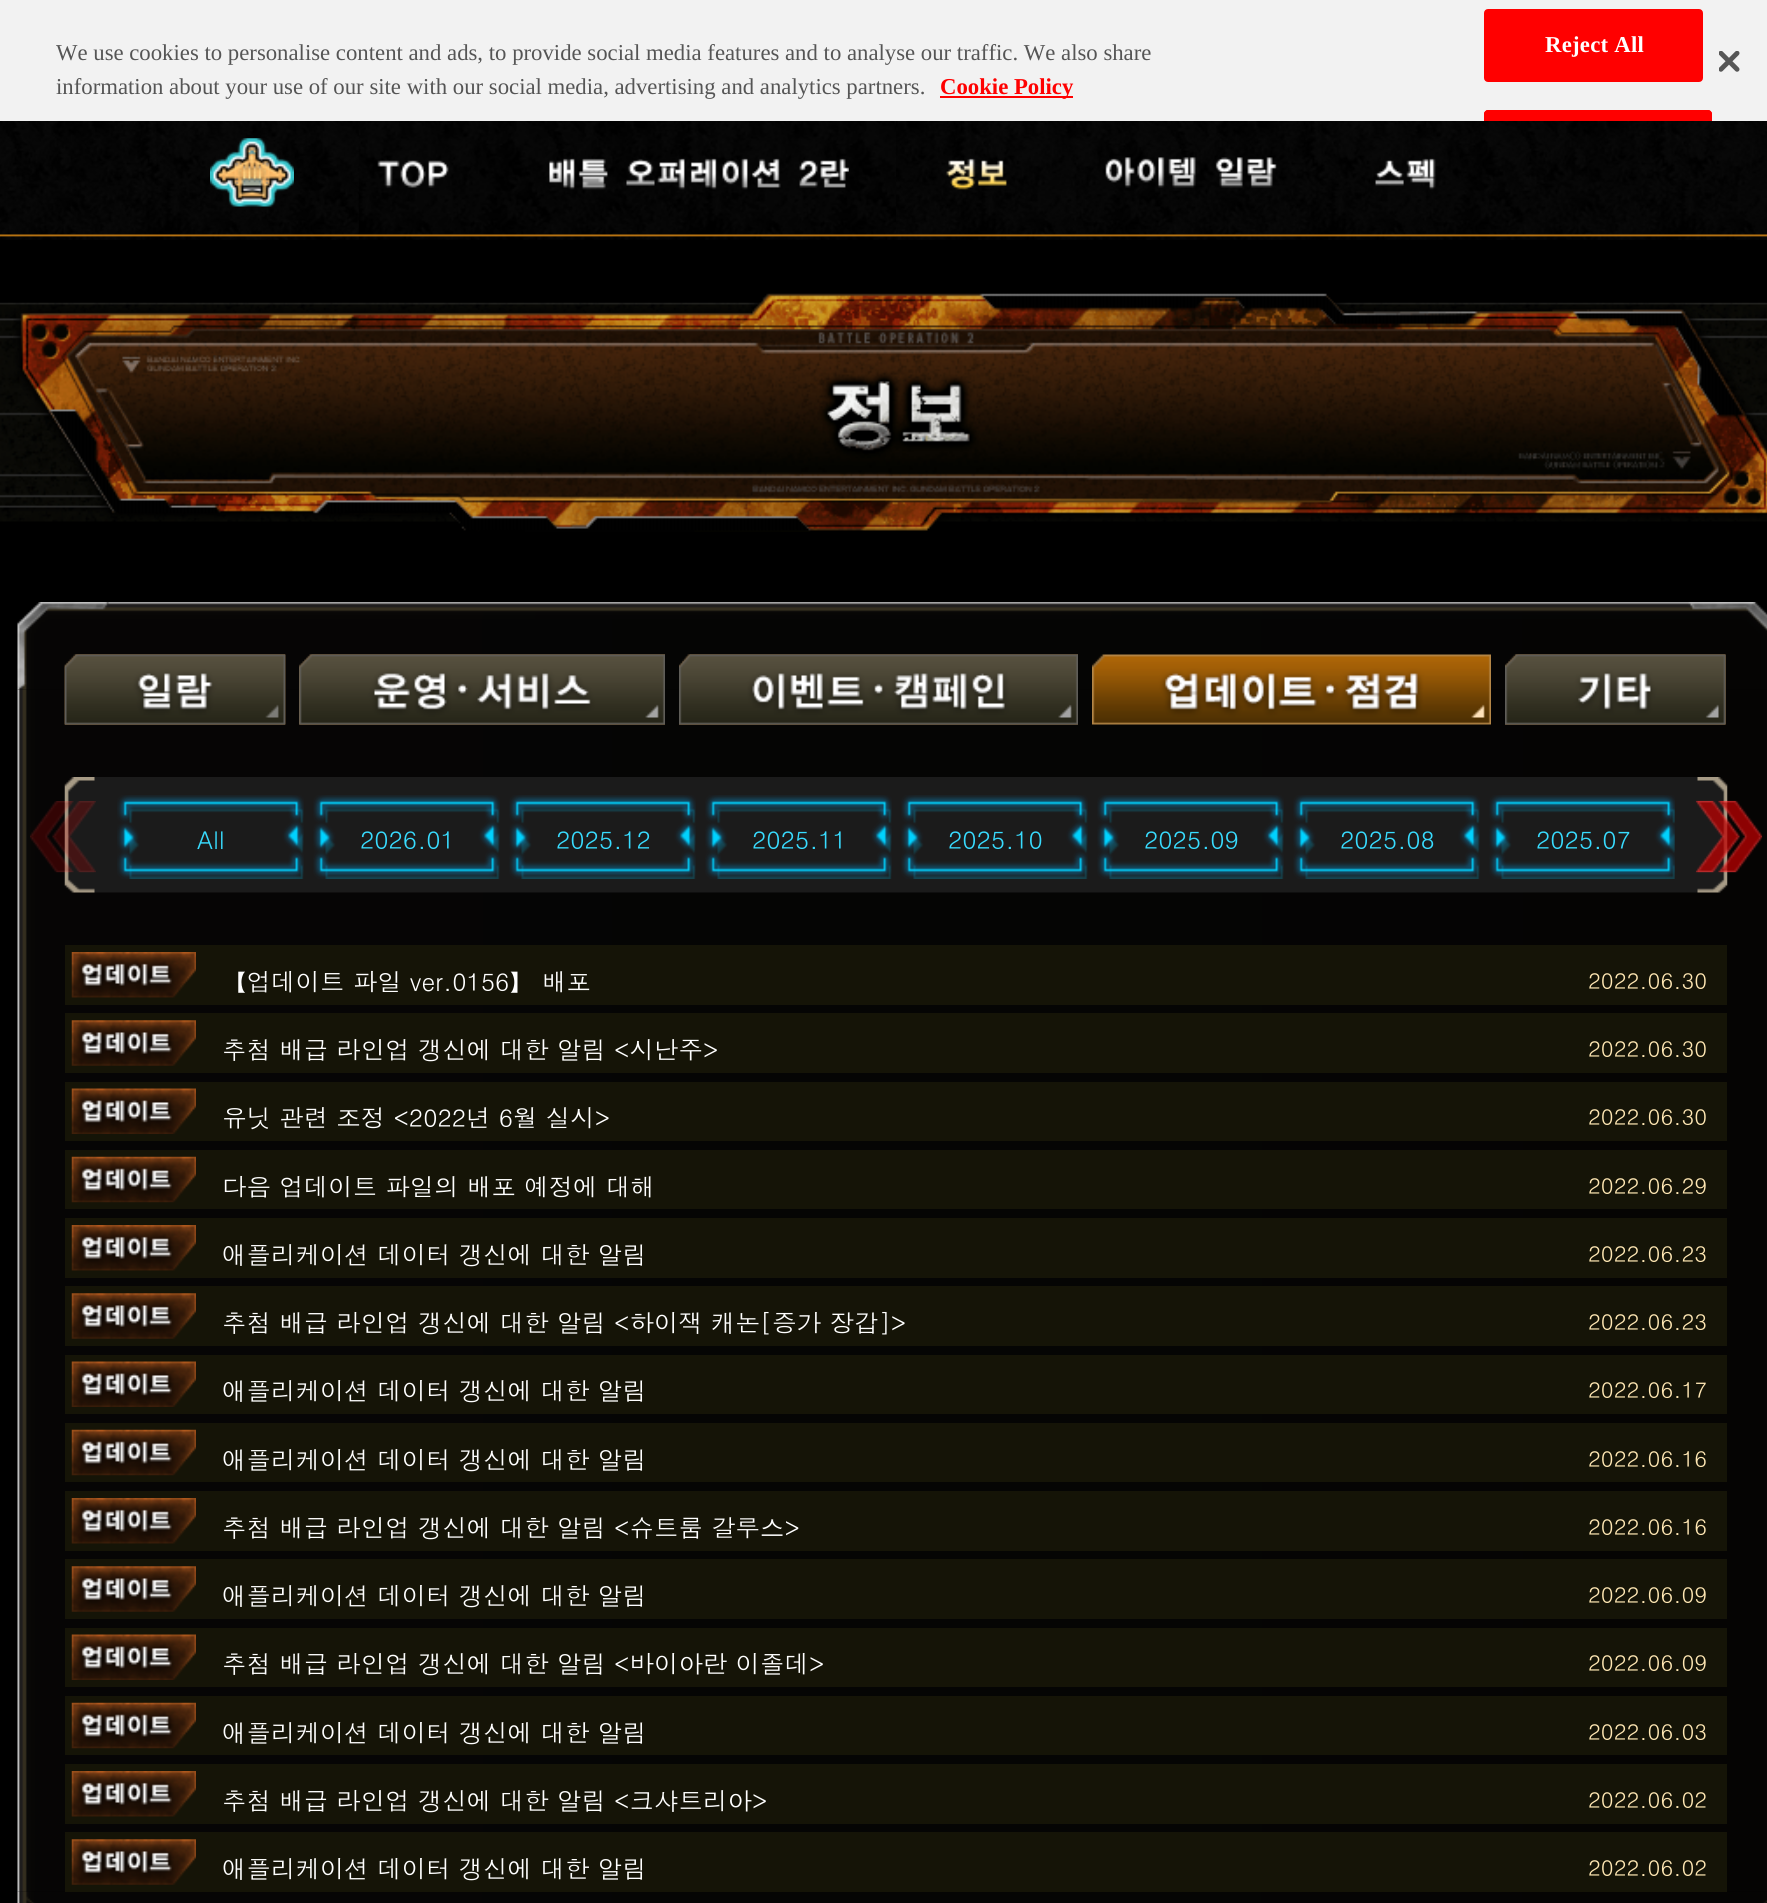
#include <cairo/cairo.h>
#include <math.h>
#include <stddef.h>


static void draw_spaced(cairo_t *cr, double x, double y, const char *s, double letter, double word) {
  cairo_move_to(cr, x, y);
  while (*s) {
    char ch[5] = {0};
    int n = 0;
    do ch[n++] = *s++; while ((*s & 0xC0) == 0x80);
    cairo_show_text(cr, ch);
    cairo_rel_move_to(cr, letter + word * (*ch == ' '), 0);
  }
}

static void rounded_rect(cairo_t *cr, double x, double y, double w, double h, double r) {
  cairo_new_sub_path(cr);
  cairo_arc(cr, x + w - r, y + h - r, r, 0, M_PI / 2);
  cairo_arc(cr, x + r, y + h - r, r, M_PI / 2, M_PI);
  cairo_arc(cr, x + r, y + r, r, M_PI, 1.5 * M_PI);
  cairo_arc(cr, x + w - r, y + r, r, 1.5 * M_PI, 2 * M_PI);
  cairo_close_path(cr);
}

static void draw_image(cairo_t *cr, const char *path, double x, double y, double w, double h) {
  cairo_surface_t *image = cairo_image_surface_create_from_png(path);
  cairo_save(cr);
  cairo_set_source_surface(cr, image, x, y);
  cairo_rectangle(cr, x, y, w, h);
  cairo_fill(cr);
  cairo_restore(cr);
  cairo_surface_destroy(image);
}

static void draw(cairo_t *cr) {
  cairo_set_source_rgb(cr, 0, 0, 0);
  cairo_paint(cr);
  cairo_set_source_rgb(cr, 242 / 255.0, 242 / 255.0, 242 / 255.0);
  cairo_rectangle(cr, 0, 0, 1767, 121);
  cairo_fill(cr);
  cairo_set_source_rgb(cr, 1, 0, 0);
  cairo_rectangle(cr, 940, 96, 133, 2);
  cairo_fill(cr);
  rounded_rect(cr, 1485, 10, 217, 71, 3);
  cairo_fill_preserve(cr);
  cairo_stroke(cr);
  cairo_new_path(cr);
  cairo_move_to(cr, 1488, 110);
  cairo_line_to(cr, 1708, 110);
  cairo_curve_to(cr, 1710, 110, 1712, 112, 1712, 114);
  cairo_line_to(cr, 1712, 121);
  cairo_line_to(cr, 1484, 121);
  cairo_line_to(cr, 1484, 114);
  cairo_curve_to(cr, 1484, 112, 1486, 110, 1488, 110);
  cairo_close_path(cr);
  cairo_fill(cr);
  draw_image(cr, "images/2.png", 0, 121, 1767, 119);
  draw_image(cr, "images/4.png", 896, 121, 871, 119);
  cairo_save(cr);
  cairo_rectangle(cr, 0, 0, 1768, 121);
  cairo_clip(cr);
  rounded_rect(cr, 1485, 111, 226, 70, 3);
  cairo_stroke(cr);
  cairo_restore(cr);
  draw_image(cr, "images/1.png", 1719, 51, 21, 21);
  draw_image(cr, "images/3.png", 0, 121, 359, 119);
  draw_image(cr, "images/5.png", 210, 138, 84, 69);
  draw_image(cr, "images/6.png", 377, 160, 72, 28);
  draw_image(cr, "images/7.png", 549, 158, 300, 32);
  draw_image(cr, "images/8.png", 946, 158, 61, 32);
  draw_image(cr, "images/9.png", 1105, 157, 172, 31);
  draw_image(cr, "images/10.png", 1375, 158, 61, 32);
  draw_image(cr, "images/11.png", 0, 302, 1767, 220);
  draw_image(cr, "images/12.png", 13, 293, 1754, 239);
  draw_image(cr, "images/14.png", 17, 689, 1750, 1203);
  draw_image(cr, "images/13.png", 17, 602, 1750, 88);
  draw_image(cr, "images/15.png", 64, 654, 222, 71);
  draw_image(cr, "images/16.png", 64, 654, 222, 71);
  draw_image(cr, "images/17.png", 299, 654, 366, 71);
  draw_image(cr, "images/18.png", 299, 654, 366, 71);
  draw_image(cr, "images/19.png", 679, 654, 399, 71);
  draw_image(cr, "images/20.png", 679, 654, 399, 71);
  draw_image(cr, "images/21.png", 1092, 654, 399, 71);
  draw_image(cr, "images/22.png", 1505, 654, 221, 71);
  draw_image(cr, "images/23.png", 1505, 654, 221, 71);
  draw_image(cr, "images/24.png", 64, 777, 1664, 116);
  draw_image(cr, "images/25.png", 30, 801, 66, 72);
  draw_image(cr, "images/26.png", 117, 795, 187, 84);
  draw_image(cr, "images/27.png", 313, 795, 187, 84);
  draw_image(cr, "images/27.png", 509, 795, 187, 84);
  draw_image(cr, "images/27.png", 705, 795, 187, 84);
  draw_image(cr, "images/27.png", 901, 795, 187, 84);
  draw_image(cr, "images/27.png", 1097, 795, 187, 84);
  draw_image(cr, "images/27.png", 1293, 795, 187, 84);
  draw_image(cr, "images/28.png", 1489, 795, 186, 84);
  draw_image(cr, "images/29.png", 1695, 800, 68, 73);
  cairo_set_source_rgb(cr, 21 / 255.0, 20 / 255.0, 7 / 255.0);
  cairo_rectangle(cr, 65, 945, 1662, 60);
  cairo_fill(cr);
  draw_image(cr, "images/30.png", 71, 952, 125, 46);
  cairo_rectangle(cr, 65, 1013, 1662, 60);
  cairo_fill(cr);
  draw_image(cr, "images/31.png", 71, 1020, 125, 46);
  cairo_rectangle(cr, 65, 1082, 1662, 59);
  cairo_fill(cr);
  draw_image(cr, "images/32.png", 71, 1088, 125, 46);
  cairo_rectangle(cr, 65, 1150, 1662, 59);
  cairo_fill(cr);
  draw_image(cr, "images/33.png", 71, 1156, 125, 47);
  cairo_rectangle(cr, 65, 1218, 1662, 60);
  cairo_fill(cr);
  draw_image(cr, "images/30.png", 71, 1225, 125, 46);
  cairo_rectangle(cr, 65, 1286, 1662, 60);
  cairo_fill(cr);
  draw_image(cr, "images/31.png", 71, 1293, 125, 46);
  cairo_rectangle(cr, 65, 1355, 1662, 59);
  cairo_fill(cr);
  draw_image(cr, "images/32.png", 71, 1361, 125, 46);
  cairo_rectangle(cr, 65, 1423, 1662, 59);
  cairo_fill(cr);
  draw_image(cr, "images/33.png", 71, 1429, 125, 47);
  cairo_rectangle(cr, 65, 1491, 1662, 60);
  cairo_fill(cr);
  draw_image(cr, "images/30.png", 71, 1498, 125, 46);
  cairo_rectangle(cr, 65, 1559, 1662, 60);
  cairo_fill(cr);
  draw_image(cr, "images/31.png", 71, 1566, 125, 46);
  cairo_rectangle(cr, 65, 1628, 1662, 59);
  cairo_fill(cr);
  draw_image(cr, "images/32.png", 71, 1634, 125, 46);
  cairo_rectangle(cr, 65, 1696, 1662, 59);
  cairo_fill(cr);
  draw_image(cr, "images/33.png", 71, 1702, 125, 47);
  cairo_rectangle(cr, 65, 1764, 1662, 60);
  cairo_fill(cr);
  draw_image(cr, "images/30.png", 71, 1771, 125, 46);
  draw_image(cr, "images/34.png", 17, 1891, 1750, 12);
  cairo_rectangle(cr, 65, 1832, 1662, 60);
  cairo_fill(cr);
  draw_image(cr, "images/31.png", 71, 1839, 125, 46);
  cairo_select_font_face(cr, "Liberation Serif", CAIRO_FONT_SLANT_NORMAL, CAIRO_FONT_WEIGHT_NORMAL);
  cairo_set_font_size(cr, 22.75);
  cairo_set_source_rgb(cr, 85 / 255.0, 85 / 255.0, 85 / 255.0);
  cairo_move_to(cr, 56, 60);
  cairo_show_text(cr, "We use cookies to personalise content and ads, to provide social media features and to analyse our traffic. We also share");
  cairo_move_to(cr, 56, 94);
  cairo_show_text(cr, "information about your use of our site with our social media, advertising and analytics partners.");
  cairo_select_font_face(cr, "Liberation Serif", CAIRO_FONT_SLANT_NORMAL, CAIRO_FONT_WEIGHT_BOLD);
  cairo_set_source_rgb(cr, 1, 0, 0);
  cairo_move_to(cr, 940, 94);
  cairo_show_text(cr, "Cookie Policy");
  cairo_set_source_rgb(cr, 1, 1, 1);
  draw_spaced(cr, 1545, 52, "Reject All", 0.25, 0);
  cairo_select_font_face(cr, "Dotum", CAIRO_FONT_SLANT_NORMAL, CAIRO_FONT_WEIGHT_NORMAL);
  cairo_set_font_size(cr, 24.5);
  cairo_set_source_rgb(cr, 56 / 255.0, 220 / 255.0, 1);
  cairo_move_to(cr, 197, 849);
  cairo_show_text(cr, "All");
  cairo_move_to(cr, 360, 849);
  cairo_show_text(cr, "2026.01");
  cairo_move_to(cr, 556, 849);
  cairo_show_text(cr, "2025.12");
  cairo_move_to(cr, 752, 849);
  cairo_show_text(cr, "2025.11");
  cairo_move_to(cr, 948, 849);
  cairo_show_text(cr, "2025.10");
  cairo_move_to(cr, 1144, 849);
  cairo_show_text(cr, "2025.09");
  cairo_move_to(cr, 1340, 849);
  cairo_show_text(cr, "2025.08");
  cairo_move_to(cr, 1536, 849);
  cairo_show_text(cr, "2025.07");
  cairo_set_source_rgb(cr, 1, 1, 1);
  cairo_move_to(cr, 222, 991);
  cairo_show_text(cr, "【업데이트 파일 ver.0156】 배포");
  cairo_set_font_size(cr, 22);
  cairo_set_source_rgb(cr, 1, 231 / 255.0, 179 / 255.0);
  cairo_move_to(cr, 1588, 989);
  cairo_show_text(cr, "2022.06.30");
  cairo_set_font_size(cr, 24.5);
  cairo_set_source_rgb(cr, 1, 1, 1);
  cairo_move_to(cr, 222, 1059);
  cairo_show_text(cr, "추첨 배급 라인업 갱신에 대한 알림 <시난주>");
  cairo_set_font_size(cr, 22);
  cairo_set_source_rgb(cr, 1, 231 / 255.0, 179 / 255.0);
  cairo_move_to(cr, 1588, 1057);
  cairo_show_text(cr, "2022.06.30");
  cairo_set_font_size(cr, 24.5);
  cairo_set_source_rgb(cr, 1, 1, 1);
  cairo_move_to(cr, 222, 1127);
  cairo_show_text(cr, "유닛 관련 조정 <2022년 6월 실시>");
  cairo_set_font_size(cr, 22);
  cairo_set_source_rgb(cr, 1, 231 / 255.0, 179 / 255.0);
  cairo_move_to(cr, 1588, 1125);
  cairo_show_text(cr, "2022.06.30");
  cairo_set_font_size(cr, 24.5);
  cairo_set_source_rgb(cr, 1, 1, 1);
  cairo_move_to(cr, 222, 1196);
  cairo_show_text(cr, "다음 업데이트 파일의 배포 예정에 대해");
  cairo_set_font_size(cr, 22);
  cairo_set_source_rgb(cr, 1, 231 / 255.0, 179 / 255.0);
  cairo_move_to(cr, 1588, 1194);
  cairo_show_text(cr, "2022.06.29");
  cairo_set_font_size(cr, 24.5);
  cairo_set_source_rgb(cr, 1, 1, 1);
  cairo_move_to(cr, 222, 1264);
  cairo_show_text(cr, "애플리케이션 데이터 갱신에 대한 알림");
  cairo_set_font_size(cr, 22);
  cairo_set_source_rgb(cr, 1, 231 / 255.0, 179 / 255.0);
  cairo_move_to(cr, 1588, 1262);
  cairo_show_text(cr, "2022.06.23");
  cairo_set_font_size(cr, 24.5);
  cairo_set_source_rgb(cr, 1, 1, 1);
  cairo_move_to(cr, 222, 1332);
  cairo_show_text(cr, "추첨 배급 라인업 갱신에 대한 알림 <하이잭 캐논[증가 장갑]>");
  cairo_set_font_size(cr, 22);
  cairo_set_source_rgb(cr, 1, 231 / 255.0, 179 / 255.0);
  cairo_move_to(cr, 1588, 1330);
  cairo_show_text(cr, "2022.06.23");
  cairo_set_font_size(cr, 24.5);
  cairo_set_source_rgb(cr, 1, 1, 1);
  cairo_move_to(cr, 222, 1400);
  cairo_show_text(cr, "애플리케이션 데이터 갱신에 대한 알림");
  cairo_set_font_size(cr, 22);
  cairo_set_source_rgb(cr, 1, 231 / 255.0, 179 / 255.0);
  cairo_move_to(cr, 1588, 1398);
  cairo_show_text(cr, "2022.06.17");
  cairo_set_font_size(cr, 24.5);
  cairo_set_source_rgb(cr, 1, 1, 1);
  cairo_move_to(cr, 222, 1469);
  cairo_show_text(cr, "애플리케이션 데이터 갱신에 대한 알림");
  cairo_set_font_size(cr, 22);
  cairo_set_source_rgb(cr, 1, 231 / 255.0, 179 / 255.0);
  cairo_move_to(cr, 1588, 1467);
  cairo_show_text(cr, "2022.06.16");
  cairo_set_font_size(cr, 24.5);
  cairo_set_source_rgb(cr, 1, 1, 1);
  cairo_move_to(cr, 222, 1537);
  cairo_show_text(cr, "추첨 배급 라인업 갱신에 대한 알림 <슈트룸 갈루스>");
  cairo_set_font_size(cr, 22);
  cairo_set_source_rgb(cr, 1, 231 / 255.0, 179 / 255.0);
  cairo_move_to(cr, 1588, 1535);
  cairo_show_text(cr, "2022.06.16");
  cairo_set_font_size(cr, 24.5);
  cairo_set_source_rgb(cr, 1, 1, 1);
  cairo_move_to(cr, 222, 1605);
  cairo_show_text(cr, "애플리케이션 데이터 갱신에 대한 알림");
  cairo_set_font_size(cr, 22);
  cairo_set_source_rgb(cr, 1, 231 / 255.0, 179 / 255.0);
  cairo_move_to(cr, 1588, 1603);
  cairo_show_text(cr, "2022.06.09");
  cairo_set_font_size(cr, 24.5);
  cairo_set_source_rgb(cr, 1, 1, 1);
  cairo_move_to(cr, 222, 1673);
  cairo_show_text(cr, "추첨 배급 라인업 갱신에 대한 알림 <바이아란 이졸데>");
  cairo_set_font_size(cr, 22);
  cairo_set_source_rgb(cr, 1, 231 / 255.0, 179 / 255.0);
  cairo_move_to(cr, 1588, 1671);
  cairo_show_text(cr, "2022.06.09");
  cairo_set_font_size(cr, 24.5);
  cairo_set_source_rgb(cr, 1, 1, 1);
  cairo_move_to(cr, 222, 1742);
  cairo_show_text(cr, "애플리케이션 데이터 갱신에 대한 알림");
  cairo_set_font_size(cr, 22);
  cairo_set_source_rgb(cr, 1, 231 / 255.0, 179 / 255.0);
  cairo_move_to(cr, 1588, 1740);
  cairo_show_text(cr, "2022.06.03");
  cairo_set_font_size(cr, 24.5);
  cairo_set_source_rgb(cr, 1, 1, 1);
  cairo_move_to(cr, 222, 1810);
  cairo_show_text(cr, "추첨 배급 라인업 갱신에 대한 알림 <크샤트리아>");
  cairo_set_font_size(cr, 22);
  cairo_set_source_rgb(cr, 1, 231 / 255.0, 179 / 255.0);
  cairo_move_to(cr, 1588, 1808);
  cairo_show_text(cr, "2022.06.02");
  cairo_set_font_size(cr, 24.5);
  cairo_set_source_rgb(cr, 1, 1, 1);
  cairo_move_to(cr, 222, 1878);
  cairo_show_text(cr, "애플리케이션 데이터 갱신에 대한 알림");
  cairo_set_font_size(cr, 22);
  cairo_set_source_rgb(cr, 1, 231 / 255.0, 179 / 255.0);
  cairo_move_to(cr, 1588, 1876);
  cairo_show_text(cr, "2022.06.02");
}

int main(void) {
  cairo_surface_t *surface = cairo_image_surface_create(CAIRO_FORMAT_RGB24, 1767, 1903);
  cairo_t *cr = cairo_create(surface);
  cairo_font_options_t *options = cairo_font_options_create();
  cairo_font_options_set_hint_metrics(options, CAIRO_HINT_METRICS_OFF);
  cairo_font_options_set_hint_style(options, CAIRO_HINT_STYLE_NONE);
  cairo_set_font_options(cr, options);
  cairo_set_miter_limit(cr, 4);
  draw(cr);
  cairo_surface_write_to_png(surface, "out.png");
  cairo_font_options_destroy(options);
  cairo_destroy(cr);
  cairo_surface_destroy(surface);
  return 0;
}
